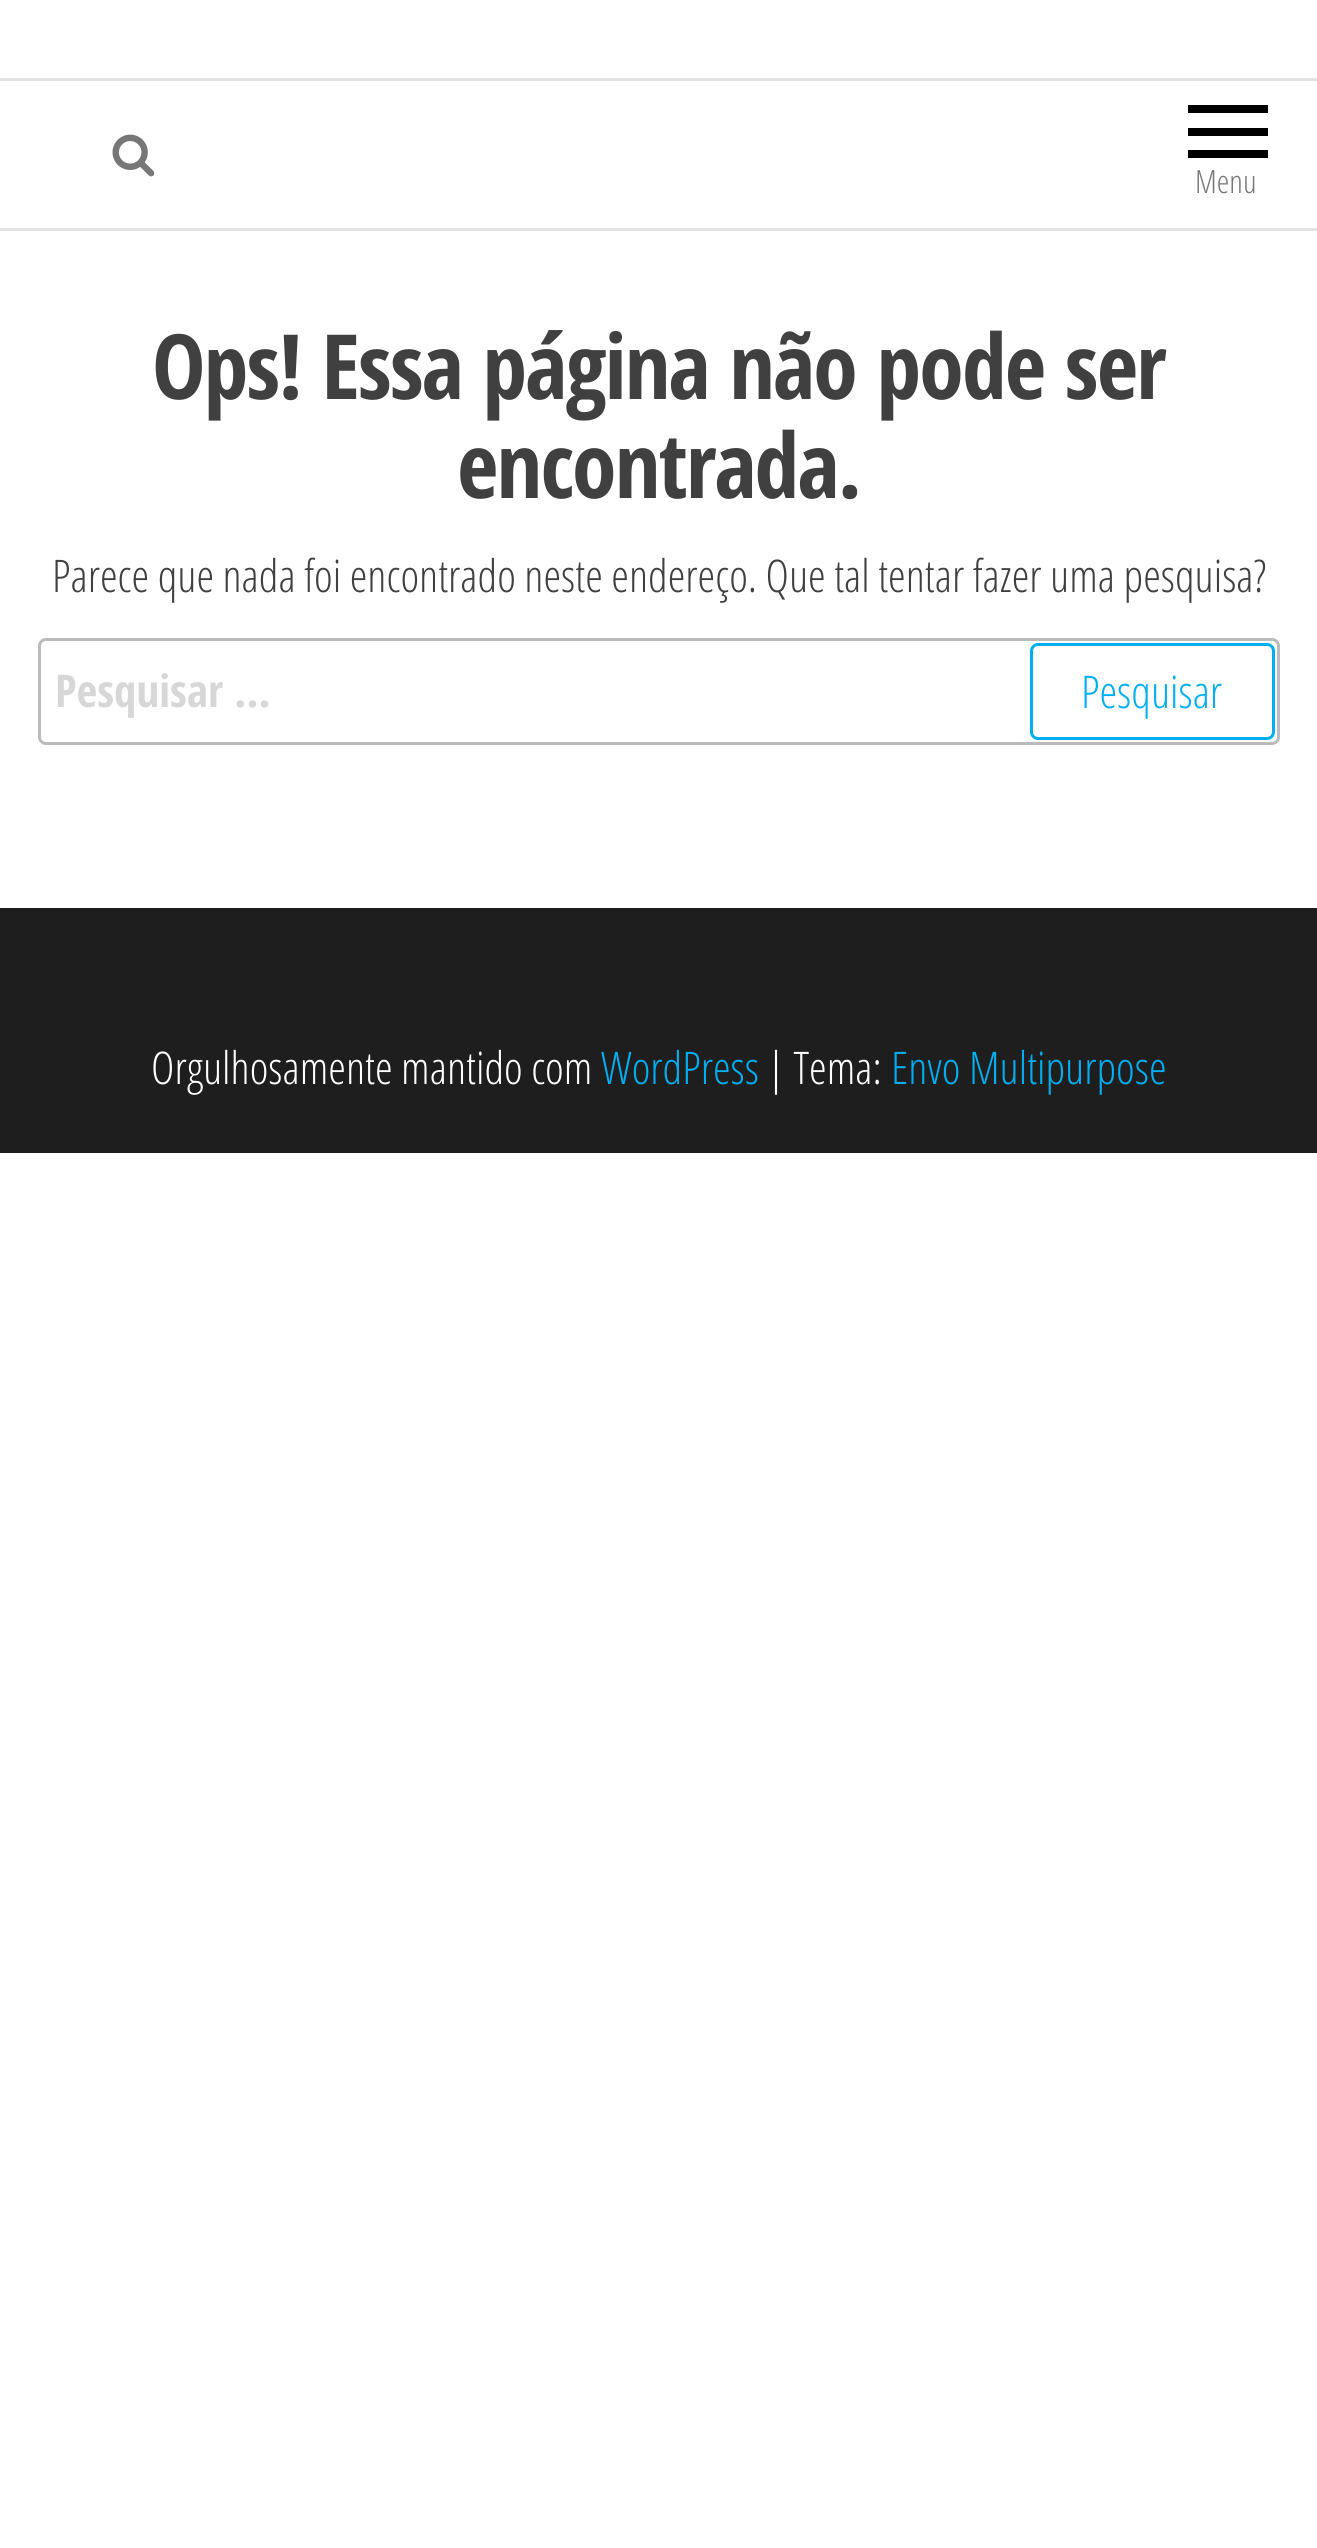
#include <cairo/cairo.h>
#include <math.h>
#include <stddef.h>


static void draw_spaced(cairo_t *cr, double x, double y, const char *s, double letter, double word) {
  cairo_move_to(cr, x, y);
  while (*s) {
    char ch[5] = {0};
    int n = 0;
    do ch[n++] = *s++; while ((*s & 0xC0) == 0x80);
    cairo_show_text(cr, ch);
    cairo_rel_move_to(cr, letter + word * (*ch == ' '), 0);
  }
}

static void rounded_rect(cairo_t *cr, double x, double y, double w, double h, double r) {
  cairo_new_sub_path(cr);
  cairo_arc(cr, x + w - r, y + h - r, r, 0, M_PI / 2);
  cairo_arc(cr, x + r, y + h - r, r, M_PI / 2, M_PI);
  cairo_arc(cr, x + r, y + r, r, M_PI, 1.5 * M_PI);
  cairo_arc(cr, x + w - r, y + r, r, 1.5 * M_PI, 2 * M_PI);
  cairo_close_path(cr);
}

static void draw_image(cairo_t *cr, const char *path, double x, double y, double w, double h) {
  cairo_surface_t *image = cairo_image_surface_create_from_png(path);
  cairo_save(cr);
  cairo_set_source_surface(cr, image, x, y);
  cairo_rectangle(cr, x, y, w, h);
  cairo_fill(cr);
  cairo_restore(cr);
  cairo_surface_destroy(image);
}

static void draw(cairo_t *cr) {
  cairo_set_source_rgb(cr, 1, 1, 1);
  cairo_paint(cr);
  cairo_set_source_rgb(cr, 226 / 255.0, 226 / 255.0, 226 / 255.0);
  cairo_rectangle(cr, 0, 78, 1317, 3);
  cairo_fill(cr);
  cairo_rectangle(cr, 0, 228, 1317, 3);
  cairo_fill(cr);
  draw_image(cr, "images/1.png", 112, 134, 43, 43);
  cairo_set_source_rgb(cr, 0, 0, 0);
  cairo_rectangle(cr, 1188, 105, 80, 8);
  cairo_fill(cr);
  cairo_rectangle(cr, 1188, 128, 80, 8);
  cairo_fill(cr);
  cairo_rectangle(cr, 1188, 150, 80, 8);
  cairo_fill(cr);
  rounded_rect(cr, 39.5, 639.5, 1239, 104, 6.5);
  cairo_set_source_rgb(cr, 187 / 255.0, 187 / 255.0, 187 / 255.0);
  cairo_set_line_width(cr, 3);
  cairo_stroke(cr);
  rounded_rect(cr, 1031.5, 644.5, 242, 94, 6.5);
  cairo_set_source_rgb(cr, 0, 175 / 255.0, 242 / 255.0);
  cairo_stroke(cr);
  cairo_set_source_rgb(cr, 30 / 255.0, 30 / 255.0, 30 / 255.0);
  cairo_rectangle(cr, 0, 908, 1317, 245);
  cairo_fill(cr);
  cairo_select_font_face(cr, "Open Sans Condensed Light", CAIRO_FONT_SLANT_NORMAL, CAIRO_FONT_WEIGHT_NORMAL);
  cairo_set_font_size(cr, 32);
  cairo_set_source_rgb(cr, 119 / 255.0, 119 / 255.0, 119 / 255.0);
  cairo_move_to(cr, 1195, 193);
  cairo_show_text(cr, "Menu");
  cairo_select_font_face(cr, "Open Sans Condensed", CAIRO_FONT_SLANT_NORMAL, CAIRO_FONT_WEIGHT_BOLD);
  cairo_set_font_size(cr, 90);
  cairo_set_source_rgb(cr, 64 / 255.0, 64 / 255.0, 64 / 255.0);
  draw_spaced(cr, 152, 399, "Ops! Essa página não pode ser", -1.8, 0);
  draw_spaced(cr, 457, 498, "encontrada.", -1.8, 0);
  cairo_select_font_face(cr, "Open Sans Condensed Light", CAIRO_FONT_SLANT_NORMAL, CAIRO_FONT_WEIGHT_NORMAL);
  cairo_set_font_size(cr, 45);
  cairo_move_to(cr, 52, 592);
  cairo_show_text(cr, "Parece que nada foi encontrado neste endereço. Que tal tentar fazer uma pesquisa?");
  cairo_select_font_face(cr, "Open Sans Condensed", CAIRO_FONT_SLANT_NORMAL, CAIRO_FONT_WEIGHT_BOLD);
  cairo_set_source_rgb(cr, 215 / 255.0, 215 / 255.0, 215 / 255.0);
  cairo_move_to(cr, 55, 707);
  cairo_show_text(cr, "Pesquisar …");
  cairo_select_font_face(cr, "Open Sans Condensed Light", CAIRO_FONT_SLANT_NORMAL, CAIRO_FONT_WEIGHT_NORMAL);
  cairo_set_source_rgb(cr, 0, 175 / 255.0, 242 / 255.0);
  cairo_move_to(cr, 1081, 708);
  cairo_show_text(cr, "Pesquisar");
  cairo_set_source_rgb(cr, 1, 1, 1);
  cairo_move_to(cr, 151, 1084);
  cairo_show_text(cr, "Orgulhosamente mantido com");
  cairo_set_source_rgb(cr, 0, 175 / 255.0, 242 / 255.0);
  cairo_move_to(cr, 601, 1084);
  cairo_show_text(cr, "WordPress");
  cairo_set_source_rgb(cr, 1, 1, 1);
  cairo_move_to(cr, 767, 1084);
  cairo_show_text(cr, "| Tema:");
  cairo_set_source_rgb(cr, 0, 175 / 255.0, 242 / 255.0);
  cairo_move_to(cr, 891, 1084);
  cairo_show_text(cr, "Envo Multipurpose");
}

int main(void) {
  cairo_surface_t *surface = cairo_image_surface_create(CAIRO_FORMAT_RGB24, 1317, 2548);
  cairo_t *cr = cairo_create(surface);
  cairo_font_options_t *options = cairo_font_options_create();
  cairo_font_options_set_hint_metrics(options, CAIRO_HINT_METRICS_OFF);
  cairo_font_options_set_hint_style(options, CAIRO_HINT_STYLE_NONE);
  cairo_set_font_options(cr, options);
  cairo_set_miter_limit(cr, 4);
  draw(cr);
  cairo_surface_write_to_png(surface, "out.png");
  cairo_font_options_destroy(options);
  cairo_destroy(cr);
  cairo_surface_destroy(surface);
  return 0;
}
